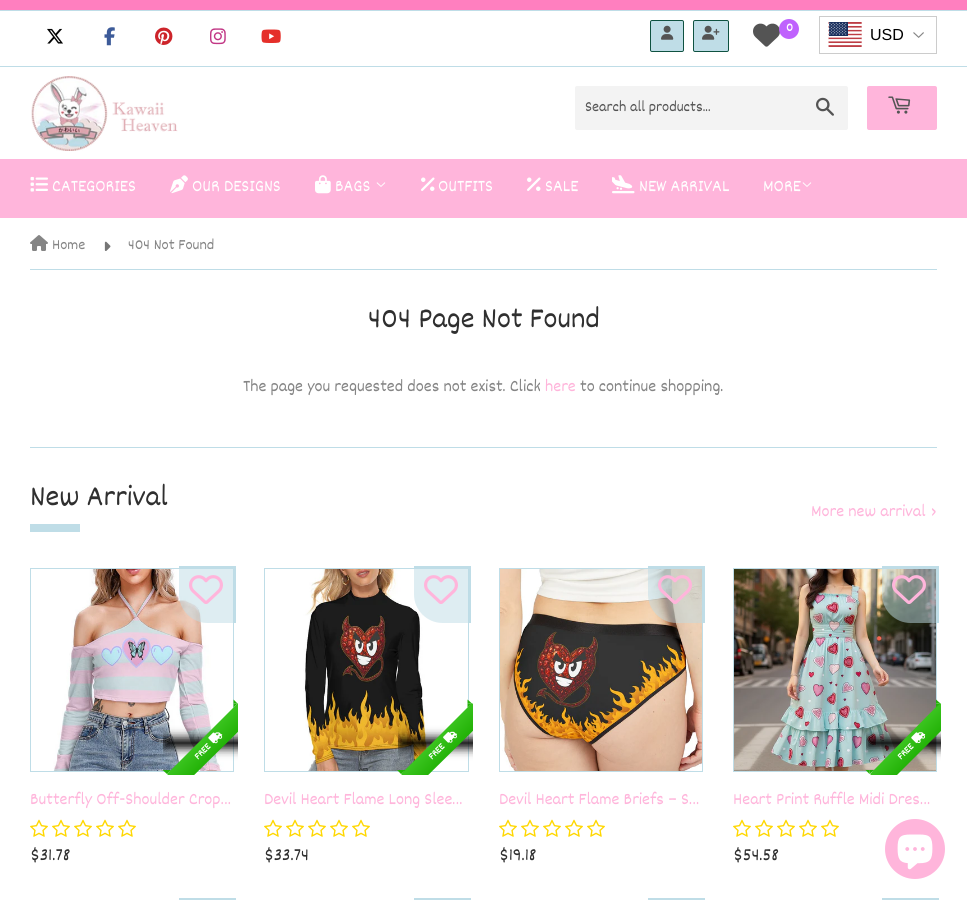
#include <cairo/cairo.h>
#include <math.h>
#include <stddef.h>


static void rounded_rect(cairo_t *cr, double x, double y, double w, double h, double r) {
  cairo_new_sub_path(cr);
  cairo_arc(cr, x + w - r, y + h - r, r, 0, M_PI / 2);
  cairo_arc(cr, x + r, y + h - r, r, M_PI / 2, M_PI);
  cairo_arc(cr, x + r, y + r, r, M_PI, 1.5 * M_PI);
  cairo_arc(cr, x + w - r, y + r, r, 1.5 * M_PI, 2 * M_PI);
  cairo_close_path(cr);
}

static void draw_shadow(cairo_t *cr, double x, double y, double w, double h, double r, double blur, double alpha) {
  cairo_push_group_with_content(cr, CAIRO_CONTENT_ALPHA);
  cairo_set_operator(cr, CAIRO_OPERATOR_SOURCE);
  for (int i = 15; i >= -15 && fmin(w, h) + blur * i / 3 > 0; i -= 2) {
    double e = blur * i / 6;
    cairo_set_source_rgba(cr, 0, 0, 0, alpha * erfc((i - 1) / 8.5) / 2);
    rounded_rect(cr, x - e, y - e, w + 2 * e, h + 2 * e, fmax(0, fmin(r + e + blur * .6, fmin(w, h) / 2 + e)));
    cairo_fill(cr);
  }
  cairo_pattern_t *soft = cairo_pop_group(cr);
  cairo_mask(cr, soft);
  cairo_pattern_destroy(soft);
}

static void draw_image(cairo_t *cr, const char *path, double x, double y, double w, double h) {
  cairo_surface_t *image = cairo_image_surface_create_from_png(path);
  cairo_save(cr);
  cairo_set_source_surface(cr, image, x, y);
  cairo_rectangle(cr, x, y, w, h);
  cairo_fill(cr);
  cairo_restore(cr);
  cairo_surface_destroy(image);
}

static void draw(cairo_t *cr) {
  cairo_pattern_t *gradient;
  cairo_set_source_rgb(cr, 1, 1, 1);
  cairo_paint(cr);
  cairo_set_source_rgb(cr, 1, 127 / 255.0, 191 / 255.0);
  cairo_rectangle(cr, 0, 0, 967, 10);
  cairo_fill(cr);
  cairo_set_source_rgb(cr, 191 / 255.0, 221 / 255.0, 231 / 255.0);
  cairo_rectangle(cr, 0, 10, 967, 1);
  cairo_fill(cr);
  draw_image(cr, "images/1.png", 47, 28, 16, 16);
  draw_image(cr, "images/2.png", 104, 27, 11, 19);
  draw_image(cr, "images/3.png", 155, 27, 18, 18);
  draw_image(cr, "images/4.png", 210, 28, 16, 17);
  draw_image(cr, "images/5.png", 261, 29, 20, 14);
  rounded_rect(cr, 650.5, 20.5, 33, 31, 1.5);
  cairo_fill_preserve(cr);
  cairo_set_source_rgb(cr, 15 / 255.0, 82 / 255.0, 65 / 255.0);
  cairo_set_line_width(cr, 1);
  cairo_stroke(cr);
  draw_image(cr, "images/6.png", 661, 25, 13, 15);
  cairo_set_source_rgb(cr, 191 / 255.0, 221 / 255.0, 231 / 255.0);
  rounded_rect(cr, 693.5, 20.5, 35, 31, 1.5);
  cairo_fill_preserve(cr);
  cairo_set_source_rgb(cr, 15 / 255.0, 82 / 255.0, 65 / 255.0);
  cairo_stroke(cr);
  draw_image(cr, "images/7.png", 702, 25, 18, 15);
  draw_image(cr, "images/8.png", 753, 23, 27, 24);
  cairo_set_source_rgb(cr, 191 / 255.0, 98 / 255.0, 253 / 255.0);
  cairo_arc(cr, 789, 29, 10, 0, 2 * M_PI);
  cairo_fill(cr);
  draw_image(cr, "images/9.png", 913, 32, 11, 6);
  cairo_rectangle(cr, 819.5, 16.5, 117, 37);
  cairo_set_source_rgb(cr, 204 / 255.0, 204 / 255.0, 204 / 255.0);
  cairo_stroke(cr);
  draw_image(cr, "images/10.png", 828, 22, 34, 25);
  cairo_set_source_rgb(cr, 191 / 255.0, 221 / 255.0, 231 / 255.0);
  cairo_rectangle(cr, 0, 66, 967, 1);
  cairo_fill(cr);
  draw_image(cr, "images/11.png", 31, 76, 147, 75);
  cairo_set_source_rgb(cr, 243 / 255.0, 243 / 255.0, 243 / 255.0);
  rounded_rect(cr, 575, 86, 273, 44, 2);
  cairo_fill(cr);
  draw_image(cr, "images/12.png", 816, 97, 18, 19);
  cairo_set_source_rgb(cr, 1, 181 / 255.0, 219 / 255.0);
  rounded_rect(cr, 867, 86, 70, 44, 2);
  cairo_fill(cr);
  draw_image(cr, "images/13.png", 888, 96, 23, 18);
  cairo_rectangle(cr, 0, 159, 967, 59);
  cairo_fill(cr);
  draw_image(cr, "images/14.png", 30, 176, 18, 16);
  draw_image(cr, "images/15.png", 170, 175, 18, 19);
  draw_image(cr, "images/16.png", 315, 175, 16, 19);
  draw_image(cr, "images/17.png", 376, 182, 10, 5);
  draw_image(cr, "images/18.png", 421, 177, 14, 14);
  draw_image(cr, "images/18.png", 527, 177, 14, 14);
  draw_image(cr, "images/19.png", 612, 175, 23, 19);
  draw_image(cr, "images/17.png", 802, 182, 10, 5);
  cairo_set_source_rgb(cr, 191 / 255.0, 221 / 255.0, 231 / 255.0);
  cairo_rectangle(cr, 30, 269, 907, 1);
  cairo_fill(cr);
  draw_image(cr, "images/20.png", 30, 235, 18, 16);
  draw_image(cr, "images/21.png", 104, 241, 7, 10);
  cairo_rectangle(cr, 30, 447, 907, 1);
  cairo_fill(cr);
  cairo_rectangle(cr, 30, 524, 50, 8);
  cairo_fill(cr);
  cairo_rectangle(cr, 30.5, 568.5, 203, 203);
  cairo_stroke(cr);
  draw_image(cr, "images/23.png", 31, 569, 202, 202);
  cairo_set_source_rgba(cr, 191 / 255.0, 221 / 255.0, 231 / 255.0, 0.5);
  cairo_new_path(cr);
  cairo_move_to(cr, 179, 566);
  cairo_line_to(cr, 236, 566);
  cairo_line_to(cr, 236, 623);
  cairo_line_to(cr, 207.5, 623);
  cairo_curve_to(cr, 192, 623, 179, 610, 179, 594.5);
  cairo_close_path(cr);
  cairo_fill(cr);
  cairo_set_source_rgb(cr, 191 / 255.0, 221 / 255.0, 231 / 255.0);
  cairo_rectangle(cr, 179, 566, 57, 3);
  cairo_fill(cr);
  cairo_rectangle(cr, 234, 566, 2, 57);
  cairo_fill(cr);
  draw_image(cr, "images/22.png", 189, 575, 34, 29);
  cairo_rectangle(cr, 264.5, 568.5, 204, 203);
  cairo_stroke(cr);
  draw_image(cr, "images/27.png", 265, 569, 203, 202);
  cairo_save(cr);
  cairo_rectangle(cr, 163, 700, 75, 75);
  cairo_clip(cr);
  cairo_set_source_rgb(cr, 0, 0, 0);
  draw_shadow(cr, 164, 738, 90, 10, 0, 5, 1);
  cairo_restore(cr);
  cairo_save(cr);
  cairo_rectangle(cr, 163, 700, 75, 75);
  cairo_clip(cr);
  gradient = cairo_pattern_create_linear(202, 739, 216, 753);
  cairo_pattern_add_color_stop_rgba(gradient, 0, 58 / 255.0, 196 / 255.0, 31 / 255.0, 1);
  cairo_pattern_add_color_stop_rgba(gradient, 1, 35 / 255.0, 178 / 255.0, 7 / 255.0, 1);
  cairo_set_source(cr, gradient);
  cairo_pattern_destroy(gradient);
  cairo_new_path(cr);
  cairo_move_to(cr, 167, 774);
  cairo_line_to(cr, 238, 703);
  cairo_line_to(cr, 252, 718);
  cairo_line_to(cr, 181, 788);
  cairo_close_path(cr);
  cairo_fill(cr);
  cairo_restore(cr);
  cairo_set_source_rgb(cr, 35 / 255.0, 178 / 255.0, 7 / 255.0);
  cairo_new_path(cr);
  cairo_move_to(cr, 233.5, 699.5);
  cairo_line_to(cr, 237.5, 703.5);
  cairo_line_to(cr, 233.5, 703.5);
  cairo_close_path(cr);
  cairo_fill(cr);
  cairo_new_path(cr);
  cairo_move_to(cr, 237.5, 703.5);
  cairo_line_to(cr, 233.5, 707.5);
  cairo_line_to(cr, 233.5, 703.5);
  cairo_close_path(cr);
  cairo_fill(cr);
  cairo_new_path(cr);
  cairo_move_to(cr, 171, 770);
  cairo_line_to(cr, 167, 774);
  cairo_line_to(cr, 167, 770);
  cairo_close_path(cr);
  cairo_move_to(cr, 167, 774);
  cairo_line_to(cr, 162.5, 770);
  cairo_line_to(cr, 167, 770);
  cairo_close_path(cr);
  cairo_fill(cr);
  draw_image(cr, "images/25.png", 30, 819, 18, 18);
  draw_image(cr, "images/25.png", 52, 819, 18, 18);
  draw_image(cr, "images/25.png", 74, 819, 18, 18);
  draw_image(cr, "images/25.png", 96, 819, 18, 18);
  draw_image(cr, "images/25.png", 118, 819, 18, 18);
  cairo_set_source_rgba(cr, 191 / 255.0, 221 / 255.0, 231 / 255.0, 0.5);
  cairo_new_path(cr);
  cairo_move_to(cr, 414, 566);
  cairo_line_to(cr, 471, 566);
  cairo_line_to(cr, 471, 623);
  cairo_line_to(cr, 442.5, 623);
  cairo_curve_to(cr, 427, 623, 414, 610, 414, 594.5);
  cairo_close_path(cr);
  cairo_fill(cr);
  cairo_set_source_rgb(cr, 191 / 255.0, 221 / 255.0, 231 / 255.0);
  cairo_rectangle(cr, 414, 566, 57, 3);
  cairo_fill(cr);
  cairo_rectangle(cr, 469, 566, 2, 57);
  cairo_fill(cr);
  draw_image(cr, "images/26.png", 424, 575, 34, 29);
  cairo_rectangle(cr, 499.5, 568.5, 203, 203);
  cairo_stroke(cr);
  draw_image(cr, "images/30.png", 500, 569, 202, 202);
  cairo_save(cr);
  cairo_rectangle(cr, 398, 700, 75, 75);
  cairo_clip(cr);
  cairo_set_source_rgb(cr, 0, 0, 0);
  draw_shadow(cr, 399, 738, 90, 10, 0, 5, 1);
  cairo_restore(cr);
  cairo_save(cr);
  cairo_rectangle(cr, 398, 700, 75, 75);
  cairo_clip(cr);
  gradient = cairo_pattern_create_linear(436, 739, 451, 753);
  cairo_pattern_add_color_stop_rgba(gradient, 0, 58 / 255.0, 196 / 255.0, 31 / 255.0, 1);
  cairo_pattern_add_color_stop_rgba(gradient, 1, 35 / 255.0, 178 / 255.0, 7 / 255.0, 1);
  cairo_set_source(cr, gradient);
  cairo_pattern_destroy(gradient);
  cairo_new_path(cr);
  cairo_move_to(cr, 401, 774);
  cairo_line_to(cr, 472, 703);
  cairo_line_to(cr, 486, 718);
  cairo_line_to(cr, 415, 788);
  cairo_close_path(cr);
  cairo_fill(cr);
  cairo_restore(cr);
  cairo_set_source_rgb(cr, 35 / 255.0, 178 / 255.0, 7 / 255.0);
  cairo_new_path(cr);
  cairo_move_to(cr, 467.5, 699.5);
  cairo_line_to(cr, 472, 703.5);
  cairo_line_to(cr, 467.5, 703.5);
  cairo_close_path(cr);
  cairo_fill(cr);
  cairo_new_path(cr);
  cairo_move_to(cr, 472, 703.5);
  cairo_line_to(cr, 467.5, 707.5);
  cairo_line_to(cr, 467.5, 703.5);
  cairo_close_path(cr);
  cairo_fill(cr);
  draw_image(cr, "images/28.png", 443, 731, 14, 12);
  cairo_new_path(cr);
  cairo_move_to(cr, 405.5, 770);
  cairo_line_to(cr, 401, 774);
  cairo_line_to(cr, 401, 770);
  cairo_close_path(cr);
  cairo_move_to(cr, 401, 774);
  cairo_line_to(cr, 397, 770);
  cairo_line_to(cr, 401, 770);
  cairo_close_path(cr);
  cairo_fill(cr);
  draw_image(cr, "images/25.png", 264, 819, 18, 18);
  draw_image(cr, "images/25.png", 286, 819, 18, 18);
  draw_image(cr, "images/25.png", 308, 819, 18, 18);
  draw_image(cr, "images/25.png", 330, 819, 18, 18);
  draw_image(cr, "images/25.png", 352, 819, 18, 18);
  cairo_set_source_rgba(cr, 191 / 255.0, 221 / 255.0, 231 / 255.0, 0.5);
  cairo_new_path(cr);
  cairo_move_to(cr, 648, 566);
  cairo_line_to(cr, 705, 566);
  cairo_line_to(cr, 705, 623);
  cairo_line_to(cr, 676.5, 623);
  cairo_curve_to(cr, 661, 623, 648, 610, 648, 594.5);
  cairo_close_path(cr);
  cairo_fill(cr);
  cairo_set_source_rgb(cr, 191 / 255.0, 221 / 255.0, 231 / 255.0);
  cairo_rectangle(cr, 648, 566, 57, 3);
  cairo_fill(cr);
  cairo_rectangle(cr, 703, 566, 2, 57);
  cairo_fill(cr);
  draw_image(cr, "images/29.png", 658, 575, 34, 29);
  draw_image(cr, "images/25.png", 499, 819, 18, 18);
  draw_image(cr, "images/25.png", 521, 819, 18, 18);
  draw_image(cr, "images/25.png", 543, 819, 18, 18);
  draw_image(cr, "images/25.png", 565, 819, 18, 18);
  draw_image(cr, "images/25.png", 587, 819, 18, 18);
  cairo_rectangle(cr, 733.5, 568.5, 203, 203);
  cairo_stroke(cr);
  draw_image(cr, "images/32.png", 734, 569, 202, 202);
  cairo_set_source_rgba(cr, 191 / 255.0, 221 / 255.0, 231 / 255.0, 0.5);
  cairo_new_path(cr);
  cairo_move_to(cr, 882, 566);
  cairo_line_to(cr, 939, 566);
  cairo_line_to(cr, 939, 623);
  cairo_line_to(cr, 910.5, 623);
  cairo_curve_to(cr, 895, 623, 882, 610, 882, 594.5);
  cairo_close_path(cr);
  cairo_fill(cr);
  cairo_set_source_rgb(cr, 191 / 255.0, 221 / 255.0, 231 / 255.0);
  cairo_rectangle(cr, 882, 566, 57, 3);
  cairo_fill(cr);
  cairo_rectangle(cr, 937, 566, 2, 57);
  cairo_fill(cr);
  draw_image(cr, "images/31.png", 892, 575, 34, 30);
  cairo_save(cr);
  cairo_rectangle(cr, 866, 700, 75, 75);
  cairo_clip(cr);
  cairo_set_source_rgb(cr, 0, 0, 0);
  draw_shadow(cr, 867, 738, 90, 10, 0, 5, 1);
  cairo_restore(cr);
  cairo_save(cr);
  cairo_rectangle(cr, 866, 700, 75, 75);
  cairo_clip(cr);
  gradient = cairo_pattern_create_linear(905, 739, 919, 753);
  cairo_pattern_add_color_stop_rgba(gradient, 0, 58 / 255.0, 196 / 255.0, 31 / 255.0, 1);
  cairo_pattern_add_color_stop_rgba(gradient, 1, 35 / 255.0, 178 / 255.0, 7 / 255.0, 1);
  cairo_set_source(cr, gradient);
  cairo_pattern_destroy(gradient);
  cairo_new_path(cr);
  cairo_move_to(cr, 870, 774);
  cairo_line_to(cr, 940, 703);
  cairo_line_to(cr, 954, 718);
  cairo_line_to(cr, 884, 788);
  cairo_close_path(cr);
  cairo_fill(cr);
  cairo_restore(cr);
  cairo_set_source_rgb(cr, 35 / 255.0, 178 / 255.0, 7 / 255.0);
  cairo_new_path(cr);
  cairo_move_to(cr, 936, 699.5);
  cairo_line_to(cr, 940.5, 703.5);
  cairo_line_to(cr, 936, 703.5);
  cairo_close_path(cr);
  cairo_fill(cr);
  cairo_new_path(cr);
  cairo_move_to(cr, 940.5, 703.5);
  cairo_line_to(cr, 936, 707.5);
  cairo_line_to(cr, 936, 703.5);
  cairo_close_path(cr);
  cairo_fill(cr);
  cairo_new_path(cr);
  cairo_move_to(cr, 874, 770);
  cairo_line_to(cr, 869.5, 774);
  cairo_line_to(cr, 869.5, 770);
  cairo_close_path(cr);
  cairo_fill(cr);
  cairo_new_path(cr);
  cairo_move_to(cr, 869.5, 774);
  cairo_line_to(cr, 865.5, 770);
  cairo_line_to(cr, 869.5, 770);
  cairo_close_path(cr);
  cairo_fill(cr);
  draw_image(cr, "images/25.png", 733, 819, 18, 18);
  draw_image(cr, "images/25.png", 755, 819, 18, 18);
  draw_image(cr, "images/25.png", 777, 819, 18, 18);
  draw_image(cr, "images/25.png", 799, 819, 18, 18);
  draw_image(cr, "images/25.png", 821, 819, 18, 18);
  cairo_set_source_rgb(cr, 191 / 255.0, 221 / 255.0, 231 / 255.0);
  cairo_rectangle(cr, 179, 898, 57, 2);
  cairo_fill(cr);
  cairo_rectangle(cr, 414, 898, 57, 2);
  cairo_fill(cr);
  cairo_rectangle(cr, 648, 898, 57, 2);
  cairo_fill(cr);
  cairo_rectangle(cr, 882, 898, 57, 2);
  cairo_fill(cr);
  cairo_set_source_rgb(cr, 1, 181 / 255.0, 219 / 255.0);
  cairo_arc(cr, 915, 849, 30, 0, 2 * M_PI);
  cairo_fill(cr);
  draw_image(cr, "images/34.png", 897, 834, 36, 36);
  cairo_select_font_face(cr, "Dekko", CAIRO_FONT_SLANT_NORMAL, CAIRO_FONT_WEIGHT_BOLD);
  cairo_set_font_size(cr, 13);
  cairo_set_source_rgb(cr, 1, 1, 1);
  cairo_move_to(cr, 786, 31);
  cairo_show_text(cr, "0");
  cairo_select_font_face(cr, "Liberation Sans", CAIRO_FONT_SLANT_NORMAL, CAIRO_FONT_WEIGHT_NORMAL);
  cairo_set_font_size(cr, 16);
  cairo_set_source_rgb(cr, 0, 0, 0);
  cairo_move_to(cr, 870, 40);
  cairo_show_text(cr, "USD");
  cairo_select_font_face(cr, "Dekko", CAIRO_FONT_SLANT_NORMAL, CAIRO_FONT_WEIGHT_NORMAL);
  cairo_set_source_rgb(cr, 84 / 255.0, 84 / 255.0, 84 / 255.0);
  cairo_move_to(cr, 585, 111);
  cairo_show_text(cr, "Search all products...");
  cairo_set_font_size(cr, 18);
  cairo_set_source_rgb(cr, 1, 1, 1);
  cairo_move_to(cr, 52, 191);
  cairo_show_text(cr, "CATEGORIES");
  cairo_move_to(cr, 192, 191);
  cairo_show_text(cr, "OUR DESIGNS");
  cairo_move_to(cr, 335, 191);
  cairo_show_text(cr, "BAGS");
  cairo_move_to(cr, 438, 191);
  cairo_show_text(cr, "OUTFITS");
  cairo_move_to(cr, 545, 191);
  cairo_show_text(cr, "SALE");
  cairo_move_to(cr, 639, 191);
  cairo_show_text(cr, "NEW ARRIVAL");
  cairo_move_to(cr, 763, 191);
  cairo_show_text(cr, "MORE");
  cairo_set_font_size(cr, 16);
  cairo_set_source_rgb(cr, 133 / 255.0, 133 / 255.0, 133 / 255.0);
  cairo_move_to(cr, 52, 249);
  cairo_show_text(cr, "Home");
  cairo_move_to(cr, 128, 249);
  cairo_show_text(cr, "404 Not Found");
  cairo_set_font_size(cr, 31.25);
  cairo_set_source_rgb(cr, 47 / 255.0, 47 / 255.0, 47 / 255.0);
  cairo_move_to(cr, 368, 327);
  cairo_show_text(cr, "404 Page Not Found");
  cairo_set_font_size(cr, 18);
  cairo_set_source_rgb(cr, 133 / 255.0, 133 / 255.0, 133 / 255.0);
  cairo_move_to(cr, 243, 391);
  cairo_show_text(cr, "The page you requested does not exist. Click");
  cairo_set_source_rgb(cr, 1, 181 / 255.0, 219 / 255.0);
  cairo_move_to(cr, 545, 391);
  cairo_show_text(cr, "here");
  cairo_set_source_rgb(cr, 133 / 255.0, 133 / 255.0, 133 / 255.0);
  cairo_move_to(cr, 580, 391);
  cairo_show_text(cr, "to continue shopping.");
  cairo_set_font_size(cr, 31.25);
  cairo_set_source_rgb(cr, 47 / 255.0, 47 / 255.0, 47 / 255.0);
  cairo_move_to(cr, 30, 505);
  cairo_show_text(cr, "New Arrival");
  cairo_set_font_size(cr, 18);
  cairo_set_source_rgb(cr, 1, 181 / 255.0, 219 / 255.0);
  cairo_move_to(cr, 811, 516);
  cairo_show_text(cr, "More new arrival ›");
  cairo_select_font_face(cr, "Dekko", CAIRO_FONT_SLANT_NORMAL, CAIRO_FONT_WEIGHT_BOLD);
  cairo_set_font_size(cr, 10);
  cairo_set_source_rgb(cr, 1, 1, 1);
  cairo_save(cr);
  cairo_translate(cr, 198, 760);
  cairo_rotate(cr, -45 * M_PI / 180);
  cairo_move_to(cr, 0, 0);
  cairo_show_text(cr, "FREE");
  cairo_restore(cr);
  draw_image(cr, "images/24.png", 208, 732, 15, 12);
  cairo_select_font_face(cr, "Dekko", CAIRO_FONT_SLANT_NORMAL, CAIRO_FONT_WEIGHT_NORMAL);
  cairo_set_font_size(cr, 18);
  cairo_set_source_rgb(cr, 1, 181 / 255.0, 219 / 255.0);
  cairo_move_to(cr, 30, 804);
  cairo_show_text(cr, "Butterfly Off-Shoulder Crop…");
  cairo_set_font_size(cr, 19);
  cairo_set_source_rgb(cr, 47 / 255.0, 47 / 255.0, 47 / 255.0);
  cairo_move_to(cr, 30, 860);
  cairo_show_text(cr, "$31.78");
  cairo_select_font_face(cr, "Dekko", CAIRO_FONT_SLANT_NORMAL, CAIRO_FONT_WEIGHT_BOLD);
  cairo_set_font_size(cr, 10);
  cairo_set_source_rgb(cr, 1, 1, 1);
  cairo_save(cr);
  cairo_translate(cr, 432, 760);
  cairo_rotate(cr, -45 * M_PI / 180);
  cairo_move_to(cr, 0, 0);
  cairo_show_text(cr, "FREE");
  cairo_restore(cr);
  cairo_select_font_face(cr, "Dekko", CAIRO_FONT_SLANT_NORMAL, CAIRO_FONT_WEIGHT_NORMAL);
  cairo_set_font_size(cr, 18);
  cairo_set_source_rgb(cr, 1, 181 / 255.0, 219 / 255.0);
  cairo_move_to(cr, 264, 804);
  cairo_show_text(cr, "Devil Heart Flame Long Slee…");
  cairo_set_font_size(cr, 19);
  cairo_set_source_rgb(cr, 47 / 255.0, 47 / 255.0, 47 / 255.0);
  cairo_move_to(cr, 264, 860);
  cairo_show_text(cr, "$33.74");
  cairo_set_font_size(cr, 18);
  cairo_set_source_rgb(cr, 1, 181 / 255.0, 219 / 255.0);
  cairo_move_to(cr, 499, 804);
  cairo_show_text(cr, "Devil Heart Flame Briefs – S…");
  cairo_set_font_size(cr, 19);
  cairo_set_source_rgb(cr, 47 / 255.0, 47 / 255.0, 47 / 255.0);
  cairo_move_to(cr, 499, 860);
  cairo_show_text(cr, "$19.18");
  cairo_select_font_face(cr, "Dekko", CAIRO_FONT_SLANT_NORMAL, CAIRO_FONT_WEIGHT_BOLD);
  cairo_set_font_size(cr, 10);
  cairo_set_source_rgb(cr, 1, 1, 1);
  cairo_save(cr);
  cairo_translate(cr, 901, 760);
  cairo_rotate(cr, -45 * M_PI / 180);
  cairo_move_to(cr, 0, 0);
  cairo_show_text(cr, "FREE");
  cairo_restore(cr);
  draw_image(cr, "images/33.png", 911, 732, 15, 12);
  cairo_select_font_face(cr, "Dekko", CAIRO_FONT_SLANT_NORMAL, CAIRO_FONT_WEIGHT_NORMAL);
  cairo_set_font_size(cr, 18);
  cairo_set_source_rgb(cr, 1, 181 / 255.0, 219 / 255.0);
  cairo_move_to(cr, 733, 804);
  cairo_show_text(cr, "Heart Print Ruffle Midi Dres…");
  cairo_set_font_size(cr, 19);
  cairo_set_source_rgb(cr, 47 / 255.0, 47 / 255.0, 47 / 255.0);
  cairo_move_to(cr, 733, 860);
  cairo_show_text(cr, "$54.58");
}

int main(void) {
  cairo_surface_t *surface = cairo_image_surface_create(CAIRO_FORMAT_RGB24, 967, 900);
  cairo_t *cr = cairo_create(surface);
  cairo_font_options_t *options = cairo_font_options_create();
  cairo_font_options_set_hint_metrics(options, CAIRO_HINT_METRICS_OFF);
  cairo_font_options_set_hint_style(options, CAIRO_HINT_STYLE_NONE);
  cairo_set_font_options(cr, options);
  cairo_set_miter_limit(cr, 4);
  draw(cr);
  cairo_surface_write_to_png(surface, "out.png");
  cairo_font_options_destroy(options);
  cairo_destroy(cr);
  cairo_surface_destroy(surface);
  return 0;
}
